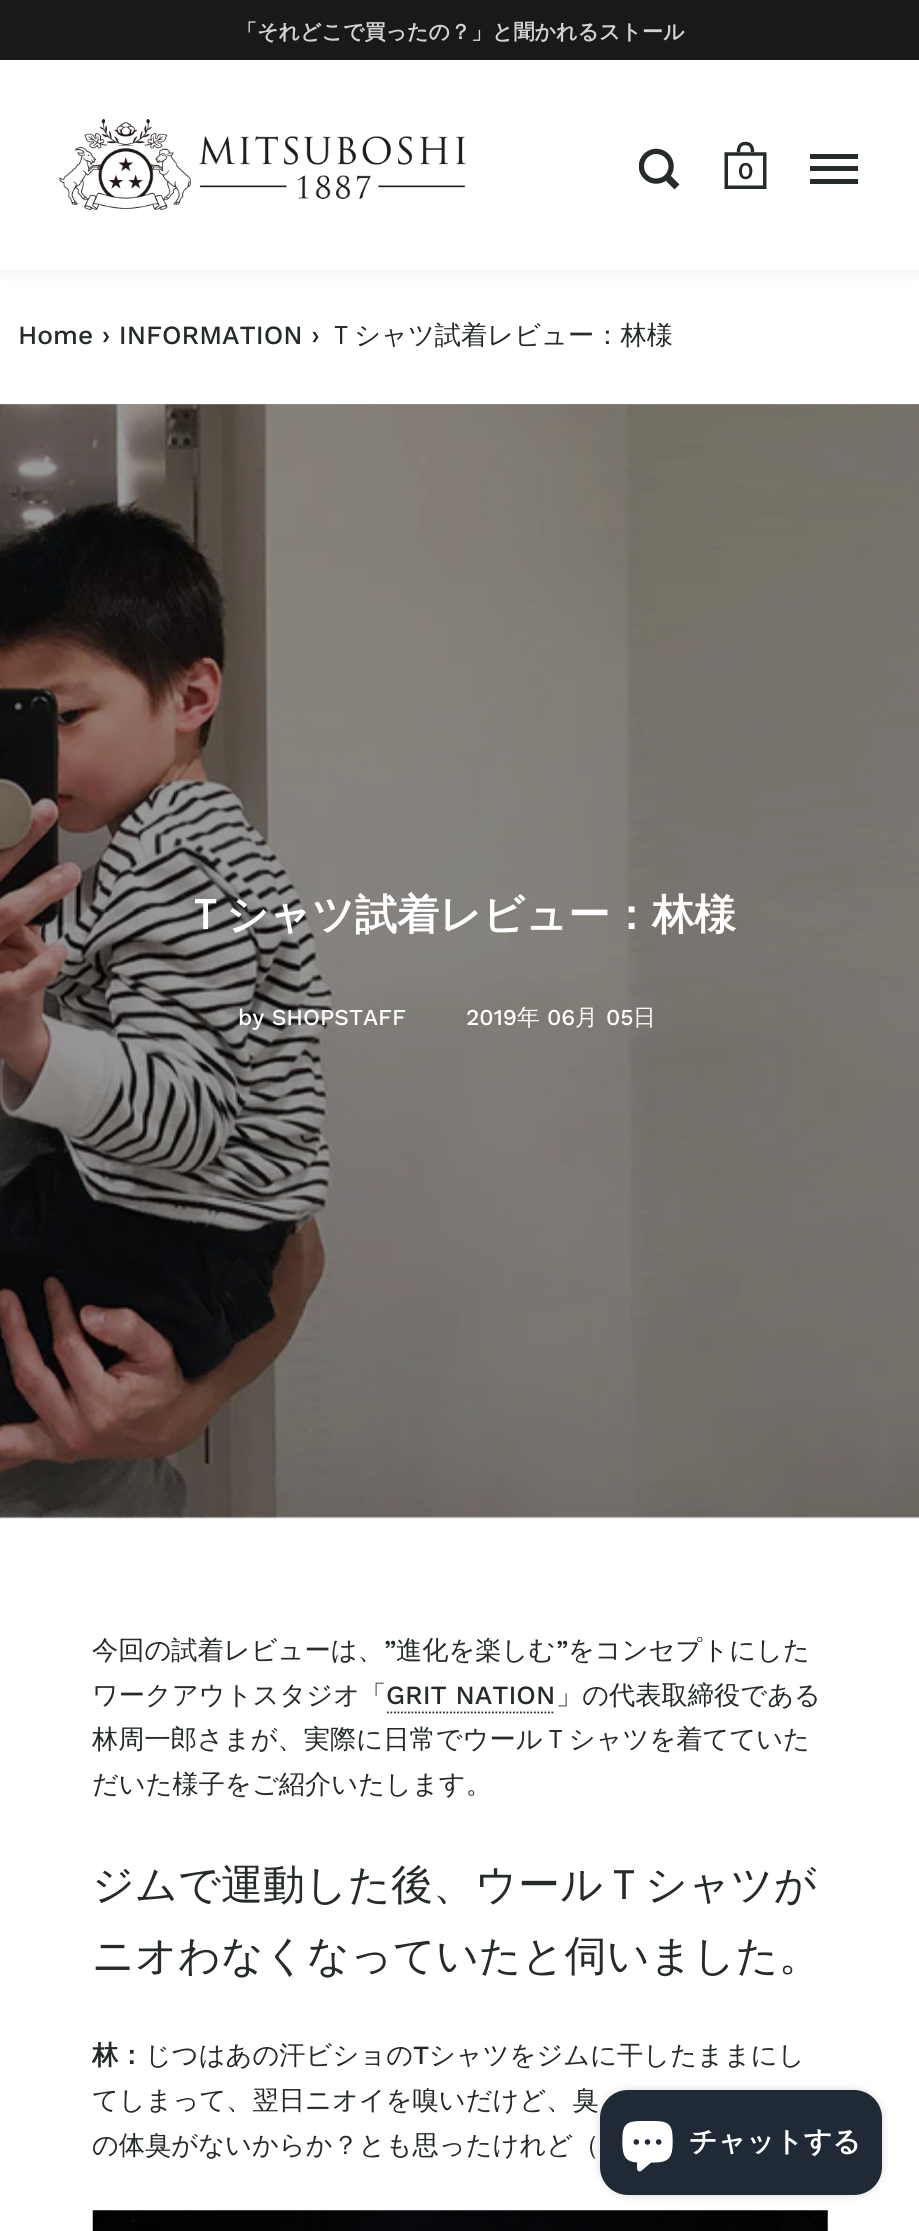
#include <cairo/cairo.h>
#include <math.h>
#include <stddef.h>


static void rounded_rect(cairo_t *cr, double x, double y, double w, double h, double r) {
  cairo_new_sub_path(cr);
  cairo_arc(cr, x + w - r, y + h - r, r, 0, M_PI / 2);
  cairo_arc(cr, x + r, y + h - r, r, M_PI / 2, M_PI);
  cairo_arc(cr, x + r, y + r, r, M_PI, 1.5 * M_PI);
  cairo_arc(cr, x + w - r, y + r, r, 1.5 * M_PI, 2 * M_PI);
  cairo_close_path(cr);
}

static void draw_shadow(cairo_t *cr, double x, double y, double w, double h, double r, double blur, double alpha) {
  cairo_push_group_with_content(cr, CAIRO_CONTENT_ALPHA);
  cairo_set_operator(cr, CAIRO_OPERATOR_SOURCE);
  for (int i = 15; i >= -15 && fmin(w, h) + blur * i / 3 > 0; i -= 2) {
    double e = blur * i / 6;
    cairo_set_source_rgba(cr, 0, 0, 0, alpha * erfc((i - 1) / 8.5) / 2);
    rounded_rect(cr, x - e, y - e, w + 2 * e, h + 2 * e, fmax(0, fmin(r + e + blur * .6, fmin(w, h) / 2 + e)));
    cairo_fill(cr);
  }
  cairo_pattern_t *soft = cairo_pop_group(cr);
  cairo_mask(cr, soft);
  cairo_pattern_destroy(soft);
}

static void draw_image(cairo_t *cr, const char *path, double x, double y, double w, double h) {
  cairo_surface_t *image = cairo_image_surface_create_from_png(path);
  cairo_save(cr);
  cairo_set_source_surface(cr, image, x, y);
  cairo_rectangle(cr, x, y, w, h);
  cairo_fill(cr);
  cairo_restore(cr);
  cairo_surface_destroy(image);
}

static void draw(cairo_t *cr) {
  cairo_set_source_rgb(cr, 1, 1, 1);
  cairo_paint(cr);
  cairo_set_source_rgb(cr, 153 / 255.0, 153 / 255.0, 153 / 255.0);
  cairo_rectangle(cr, 0, 404, 919, 1113);
  cairo_fill(cr);
  cairo_set_source_rgb(cr, 0, 0, 0);
  draw_shadow(cr, 0, 60, 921, 210, 0, 9, 0.08);
  cairo_set_source_rgb(cr, 1, 1, 1);
  cairo_rectangle(cr, 0, 60, 919, 210);
  cairo_fill(cr);
  cairo_set_source_rgb(cr, 25 / 255.0, 25 / 255.0, 25 / 255.0);
  cairo_rectangle(cr, 0, 0, 919, 60);
  cairo_fill(cr);
  draw_image(cr, "images/1.png", 59, 119, 407, 91);
  draw_image(cr, "images/2.png", 639, 148, 41, 42);
  draw_image(cr, "images/3.png", 724, 141, 43, 48);
  cairo_set_source_rgb(cr, 37 / 255.0, 42 / 255.0, 43 / 255.0);
  cairo_rectangle(cr, 810, 166, 48, 5);
  cairo_fill(cr);
  cairo_rectangle(cr, 810, 154, 48, 5);
  cairo_fill(cr);
  cairo_rectangle(cr, 810, 179, 48, 5);
  cairo_fill(cr);
  cairo_set_source_rgb(cr, 237 / 255.0, 237 / 255.0, 237 / 255.0);
  cairo_rectangle(cr, 0, 1517, 919, 2);
  cairo_fill(cr);
  draw_image(cr, "images/4.png", 0, 404, 919, 1114);
  cairo_new_path(cr);
  cairo_move_to(cr, 387, 1712.5);
  cairo_line_to(cr, 555, 1712.5);
  cairo_set_source_rgb(cr, 37 / 255.0, 42 / 255.0, 43 / 255.0);
  cairo_set_line_width(cr, 1.8);
  cairo_set_dash(cr, (double[]){1.75, 1.75}, 2, 0);
  cairo_stroke(cr);
  draw_image(cr, "images/5.png", 92, 2210, 736, 21);
  cairo_set_source_rgb(cr, 0, 0, 0);
  draw_shadow(cr, 600, 2090, 282, 105, 28, 4.5, 0.15);
  cairo_set_source_rgb(cr, 32 / 255.0, 42 / 255.0, 54 / 255.0);
  rounded_rect(cr, 600, 2090, 282, 105, 28);
  cairo_fill(cr);
  draw_image(cr, "images/6.png", 622, 2121, 51, 51);
  cairo_select_font_face(cr, "WenQuanYi Zen Hei", CAIRO_FONT_SLANT_NORMAL, CAIRO_FONT_WEIGHT_BOLD);
  cairo_set_font_size(cr, 21);
  cairo_set_source_rgb(cr, 210 / 255.0, 210 / 255.0, 210 / 255.0);
  cairo_move_to(cr, 236, 39);
  cairo_show_text(cr, "「それどこで買ったの？」と聞かれるストール");
  cairo_select_font_face(cr, "Montserrat SemiBold", CAIRO_FONT_SLANT_NORMAL, CAIRO_FONT_WEIGHT_NORMAL);
  cairo_set_font_size(cr, 22.75);
  cairo_set_source_rgb(cr, 37 / 255.0, 42 / 255.0, 43 / 255.0);
  cairo_move_to(cr, 738, 179);
  cairo_show_text(cr, "0");
  cairo_select_font_face(cr, "Work Sans Medium", CAIRO_FONT_SLANT_NORMAL, CAIRO_FONT_WEIGHT_NORMAL);
  cairo_set_font_size(cr, 26.25);
  cairo_move_to(cr, 18, 344);
  cairo_show_text(cr, "Home › INFORMATION ›");
  cairo_select_font_face(cr, "WenQuanYi Zen Hei Medium", CAIRO_FONT_SLANT_NORMAL, CAIRO_FONT_WEIGHT_NORMAL);
  cairo_move_to(cr, 328, 344);
  cairo_show_text(cr, "Ｔシャツ試着レビュー：林様");
  cairo_select_font_face(cr, "WenQuanYi Zen Hei", CAIRO_FONT_SLANT_NORMAL, CAIRO_FONT_WEIGHT_BOLD);
  cairo_set_font_size(cr, 42);
  cairo_set_source_rgb(cr, 1, 1, 1);
  cairo_move_to(cr, 184, 929);
  cairo_show_text(cr, "Ｔシャツ試着レビュー：林様");
  cairo_select_font_face(cr, "Work Sans Medium", CAIRO_FONT_SLANT_NORMAL, CAIRO_FONT_WEIGHT_NORMAL);
  cairo_set_font_size(cr, 22.75);
  cairo_move_to(cr, 238, 1025);
  cairo_show_text(cr, "by SHOPSTAFF");
  cairo_move_to(cr, 466, 1025);
  cairo_show_text(cr, "2019");
  cairo_select_font_face(cr, "WenQuanYi Zen Hei Medium", CAIRO_FONT_SLANT_NORMAL, CAIRO_FONT_WEIGHT_NORMAL);
  cairo_move_to(cr, 517, 1025);
  cairo_show_text(cr, "年");
  cairo_select_font_face(cr, "Work Sans Medium", CAIRO_FONT_SLANT_NORMAL, CAIRO_FONT_WEIGHT_NORMAL);
  cairo_move_to(cr, 547, 1025);
  cairo_show_text(cr, "06");
  cairo_select_font_face(cr, "WenQuanYi Zen Hei Medium", CAIRO_FONT_SLANT_NORMAL, CAIRO_FONT_WEIGHT_NORMAL);
  cairo_move_to(cr, 575, 1025);
  cairo_show_text(cr, "月");
  cairo_select_font_face(cr, "Work Sans Medium", CAIRO_FONT_SLANT_NORMAL, CAIRO_FONT_WEIGHT_NORMAL);
  cairo_move_to(cr, 606, 1025);
  cairo_show_text(cr, "05");
  cairo_select_font_face(cr, "WenQuanYi Zen Hei Medium", CAIRO_FONT_SLANT_NORMAL, CAIRO_FONT_WEIGHT_NORMAL);
  cairo_move_to(cr, 633, 1025);
  cairo_show_text(cr, "日");
  cairo_set_font_size(cr, 26.25);
  cairo_set_source_rgb(cr, 37 / 255.0, 42 / 255.0, 43 / 255.0);
  cairo_move_to(cr, 92, 1659);
  cairo_show_text(cr, "今回の試着レビューは、");
  cairo_select_font_face(cr, "Work Sans Medium", CAIRO_FONT_SLANT_NORMAL, CAIRO_FONT_WEIGHT_NORMAL);
  cairo_move_to(cr, 384, 1659);
  cairo_show_text(cr, "”");
  cairo_select_font_face(cr, "WenQuanYi Zen Hei Medium", CAIRO_FONT_SLANT_NORMAL, CAIRO_FONT_WEIGHT_NORMAL);
  cairo_move_to(cr, 396, 1659);
  cairo_show_text(cr, "進化を楽しむ");
  cairo_select_font_face(cr, "Work Sans Medium", CAIRO_FONT_SLANT_NORMAL, CAIRO_FONT_WEIGHT_NORMAL);
  cairo_move_to(cr, 556, 1659);
  cairo_show_text(cr, "”");
  cairo_select_font_face(cr, "WenQuanYi Zen Hei Medium", CAIRO_FONT_SLANT_NORMAL, CAIRO_FONT_WEIGHT_NORMAL);
  cairo_move_to(cr, 568, 1659);
  cairo_show_text(cr, "をコンセプトにした");
  cairo_move_to(cr, 92, 1704);
  cairo_show_text(cr, "ワークアウトスタジオ「");
  cairo_select_font_face(cr, "Work Sans Medium", CAIRO_FONT_SLANT_NORMAL, CAIRO_FONT_WEIGHT_NORMAL);
  cairo_move_to(cr, 386, 1704);
  cairo_show_text(cr, "GRIT NATION");
  cairo_select_font_face(cr, "WenQuanYi Zen Hei Medium", CAIRO_FONT_SLANT_NORMAL, CAIRO_FONT_WEIGHT_NORMAL);
  cairo_move_to(cr, 556, 1704);
  cairo_show_text(cr, "」の代表取締役である");
  cairo_move_to(cr, 92, 1748);
  cairo_show_text(cr, "林周一郎さまが、実際に日常でウールＴシャツを着てていた");
  cairo_move_to(cr, 92, 1793);
  cairo_show_text(cr, "だいた様子をご紹介いたします。");
  cairo_set_font_size(cr, 42);
  cairo_move_to(cr, 92, 1899);
  cairo_show_text(cr, "ジムで運動した後、ウールＴシャツが");
  cairo_move_to(cr, 92, 1970);
  cairo_show_text(cr, "ニオわなくなっていたと伺いました。");
  cairo_select_font_face(cr, "WenQuanYi Zen Hei", CAIRO_FONT_SLANT_NORMAL, CAIRO_FONT_WEIGHT_BOLD);
  cairo_set_font_size(cr, 26.25);
  cairo_move_to(cr, 92, 2064);
  cairo_show_text(cr, "林：");
  cairo_select_font_face(cr, "WenQuanYi Zen Hei Medium", CAIRO_FONT_SLANT_NORMAL, CAIRO_FONT_WEIGHT_NORMAL);
  cairo_move_to(cr, 145, 2064);
  cairo_show_text(cr, "じつはあの汗ビショの");
  cairo_select_font_face(cr, "Work Sans Medium", CAIRO_FONT_SLANT_NORMAL, CAIRO_FONT_WEIGHT_NORMAL);
  cairo_move_to(cr, 413, 2064);
  cairo_show_text(cr, "T");
  cairo_select_font_face(cr, "WenQuanYi Zen Hei Medium", CAIRO_FONT_SLANT_NORMAL, CAIRO_FONT_WEIGHT_NORMAL);
  cairo_move_to(cr, 429, 2064);
  cairo_show_text(cr, "シャツをジムに干したままにし");
  cairo_move_to(cr, 92, 2109);
  cairo_show_text(cr, "てしまって、翌日ニオイを嗅いだけど、臭");
  cairo_move_to(cr, 92, 2154);
  cairo_show_text(cr, "の体臭がないからか？とも思ったけれど（");
  cairo_select_font_face(cr, "WenQuanYi Zen Hei", CAIRO_FONT_SLANT_NORMAL, CAIRO_FONT_WEIGHT_BOLD);
  cairo_set_font_size(cr, 28);
  cairo_set_source_rgb(cr, 1, 1, 1);
  cairo_move_to(cr, 689, 2151);
  cairo_show_text(cr, "チャットする");
}

int main(void) {
  cairo_surface_t *surface = cairo_image_surface_create(CAIRO_FORMAT_RGB24, 919, 2231);
  cairo_t *cr = cairo_create(surface);
  cairo_font_options_t *options = cairo_font_options_create();
  cairo_font_options_set_hint_metrics(options, CAIRO_HINT_METRICS_OFF);
  cairo_font_options_set_hint_style(options, CAIRO_HINT_STYLE_NONE);
  cairo_set_font_options(cr, options);
  cairo_set_miter_limit(cr, 4);
  draw(cr);
  cairo_surface_write_to_png(surface, "out.png");
  cairo_font_options_destroy(options);
  cairo_destroy(cr);
  cairo_surface_destroy(surface);
  return 0;
}
